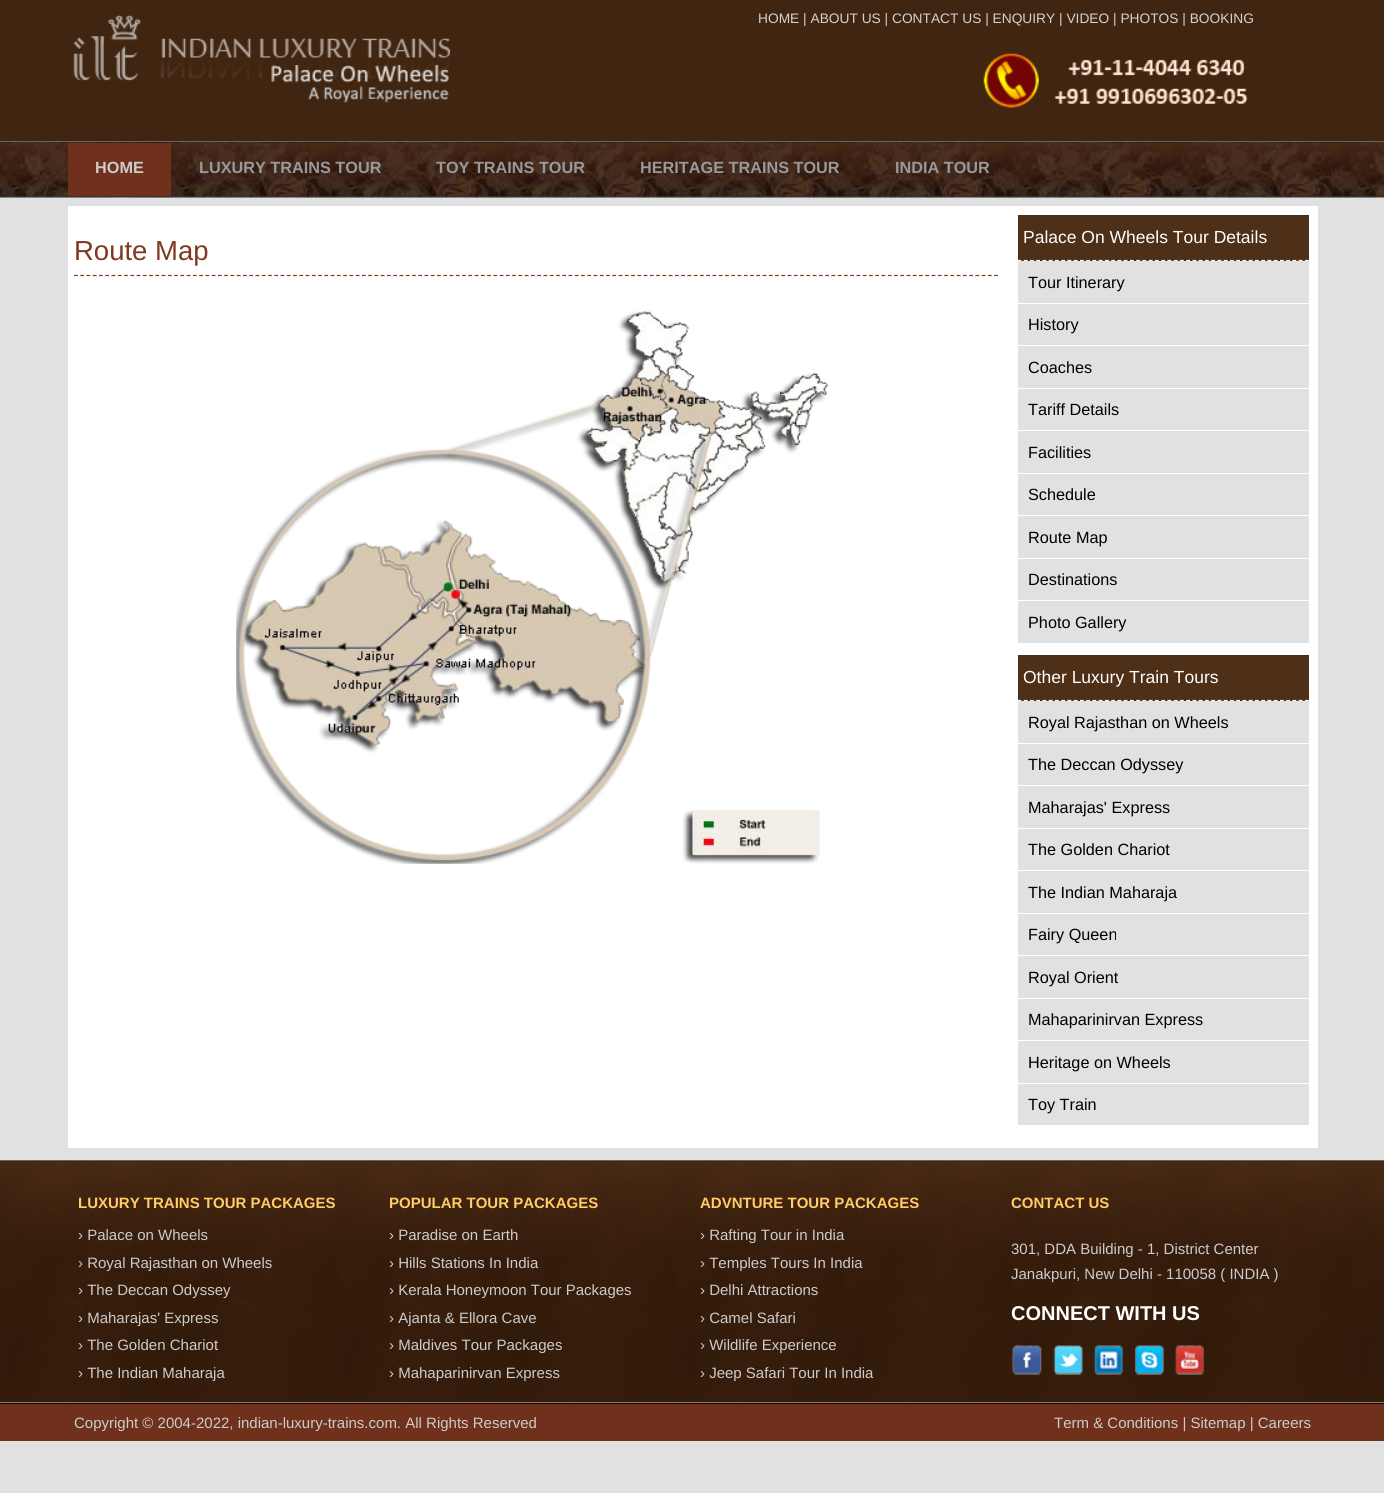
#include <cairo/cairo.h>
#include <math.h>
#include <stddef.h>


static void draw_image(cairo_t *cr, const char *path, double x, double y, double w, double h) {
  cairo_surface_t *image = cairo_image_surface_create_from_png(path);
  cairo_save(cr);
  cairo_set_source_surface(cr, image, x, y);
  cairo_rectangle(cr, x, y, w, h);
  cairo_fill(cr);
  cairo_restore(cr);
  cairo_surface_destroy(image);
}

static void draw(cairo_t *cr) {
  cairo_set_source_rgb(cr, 225 / 255.0, 225 / 255.0, 225 / 255.0);
  cairo_paint(cr);
  draw_image(cr, "images/1.png", 0, 0, 1384, 141);
  draw_image(cr, "images/2.png", 73, 15, 378, 88);
  draw_image(cr, "images/3.png", 983, 53, 265, 55);
  draw_image(cr, "images/4.png", 0, 142, 1384, 56);
  cairo_set_source_rgb(cr, 102 / 255.0, 102 / 255.0, 102 / 255.0);
  cairo_rectangle(cr, 0, 141, 1384, 1);
  cairo_fill(cr);
  cairo_set_source_rgb(cr, 51 / 255.0, 51 / 255.0, 51 / 255.0);
  cairo_rectangle(cr, 0, 196, 1384, 1);
  cairo_fill(cr);
  cairo_set_source_rgb(cr, 111 / 255.0, 48 / 255.0, 28 / 255.0);
  cairo_rectangle(cr, 68, 143, 103, 53);
  cairo_fill(cr);
  cairo_set_source_rgb(cr, 1, 1, 1);
  cairo_rectangle(cr, 68, 206, 1250, 942);
  cairo_fill(cr);
  cairo_new_path(cr);
  cairo_move_to(cr, 74, 275.5);
  cairo_line_to(cr, 999, 275.5);
  cairo_set_source_rgb(cr, 128 / 255.0, 56 / 255.0, 32 / 255.0);
  cairo_set_line_width(cr, 1.2);
  cairo_set_dash(cr, (double[]){3.75, 2.51}, 2, 0);
  cairo_stroke(cr);
  draw_image(cr, "images/5.png", 236, 311, 592, 553);
  cairo_set_source_rgb(cr, 78 / 255.0, 47 / 255.0, 24 / 255.0);
  cairo_rectangle(cr, 1018, 215, 291, 46);
  cairo_fill(cr);
  cairo_new_path(cr);
  cairo_move_to(cr, 1017.5, 260.5);
  cairo_line_to(cr, 1309, 260.5);
  cairo_set_source_rgb(cr, 1, 1, 1);
  cairo_set_dash(cr, (double[]){3.75, 2.5}, 2, 0);
  cairo_stroke(cr);
  cairo_set_source_rgb(cr, 225 / 255.0, 225 / 255.0, 225 / 255.0);
  cairo_rectangle(cr, 1018, 261, 291, 42);
  cairo_fill(cr);
  cairo_rectangle(cr, 1018, 304, 291, 41);
  cairo_fill(cr);
  cairo_rectangle(cr, 1018, 346, 291, 42);
  cairo_fill(cr);
  cairo_rectangle(cr, 1018, 389, 291, 41);
  cairo_fill(cr);
  cairo_rectangle(cr, 1018, 431, 291, 42);
  cairo_fill(cr);
  cairo_rectangle(cr, 1018, 474, 291, 41);
  cairo_fill(cr);
  cairo_rectangle(cr, 1018, 516, 291, 42);
  cairo_fill(cr);
  cairo_rectangle(cr, 1018, 559, 291, 41);
  cairo_fill(cr);
  cairo_rectangle(cr, 1018, 601, 291, 42);
  cairo_fill(cr);
  cairo_set_source_rgb(cr, 78 / 255.0, 47 / 255.0, 24 / 255.0);
  cairo_rectangle(cr, 1018, 655, 291, 46);
  cairo_fill(cr);
  cairo_new_path(cr);
  cairo_move_to(cr, 1017.5, 700.5);
  cairo_line_to(cr, 1309, 700.5);
  cairo_set_source_rgb(cr, 1, 1, 1);
  cairo_stroke(cr);
  cairo_set_source_rgb(cr, 225 / 255.0, 225 / 255.0, 225 / 255.0);
  cairo_rectangle(cr, 1018, 701, 291, 42);
  cairo_fill(cr);
  cairo_rectangle(cr, 1018, 744, 291, 41);
  cairo_fill(cr);
  cairo_rectangle(cr, 1018, 786, 291, 42);
  cairo_fill(cr);
  cairo_rectangle(cr, 1018, 829, 291, 41);
  cairo_fill(cr);
  cairo_rectangle(cr, 1018, 871, 291, 42);
  cairo_fill(cr);
  cairo_rectangle(cr, 1018, 914, 291, 41);
  cairo_fill(cr);
  cairo_rectangle(cr, 1018, 956, 291, 42);
  cairo_fill(cr);
  cairo_rectangle(cr, 1018, 999, 291, 41);
  cairo_fill(cr);
  cairo_rectangle(cr, 1018, 1041, 291, 42);
  cairo_fill(cr);
  cairo_rectangle(cr, 1018, 1084, 291, 41);
  cairo_fill(cr);
  draw_image(cr, "images/6.png", 0, 1161, 1384, 242);
  cairo_set_source_rgb(cr, 102 / 255.0, 102 / 255.0, 102 / 255.0);
  cairo_rectangle(cr, 0, 1160, 1384, 1);
  cairo_fill(cr);
  draw_image(cr, "images/7.png", 1011, 1345, 31, 30);
  draw_image(cr, "images/8.png", 1053, 1345, 30, 30);
  draw_image(cr, "images/9.png", 1093, 1345, 30, 30);
  draw_image(cr, "images/10.png", 1134, 1345, 30, 30);
  draw_image(cr, "images/11.png", 1175, 1345, 29, 30);
  cairo_set_source_rgb(cr, 111 / 255.0, 48 / 255.0, 28 / 255.0);
  cairo_rectangle(cr, 0, 1404, 1384, 37);
  cairo_fill(cr);
  cairo_set_source_rgb(cr, 22 / 255.0, 0, 2 / 255.0);
  cairo_rectangle(cr, 0, 1403, 1384, 1);
  cairo_fill(cr);
  cairo_select_font_face(cr, "Liberation Sans", CAIRO_FONT_SLANT_NORMAL, CAIRO_FONT_WEIGHT_NORMAL);
  cairo_set_font_size(cr, 13.75);
  cairo_set_source_rgb(cr, 211 / 255.0, 210 / 255.0, 210 / 255.0);
  cairo_move_to(cr, 758, 23);
  cairo_show_text(cr, "HOME | ABOUT US | CONTACT US | ENQUIRY | VIDEO | PHOTOS | BOOKING");
  cairo_select_font_face(cr, "Liberation Sans", CAIRO_FONT_SLANT_NORMAL, CAIRO_FONT_WEIGHT_BOLD);
  cairo_set_font_size(cr, 16.25);
  cairo_set_source_rgb(cr, 204 / 255.0, 204 / 255.0, 204 / 255.0);
  cairo_move_to(cr, 95, 173);
  cairo_show_text(cr, "HOME");
  cairo_set_source_rgb(cr, 153 / 255.0, 153 / 255.0, 153 / 255.0);
  cairo_move_to(cr, 199, 173);
  cairo_show_text(cr, "LUXURY TRAINS TOUR");
  cairo_move_to(cr, 436, 173);
  cairo_show_text(cr, "TOY TRAINS TOUR");
  cairo_move_to(cr, 640, 173);
  cairo_show_text(cr, "HERITAGE TRAINS TOUR");
  cairo_move_to(cr, 895, 173);
  cairo_show_text(cr, "INDIA TOUR");
  cairo_select_font_face(cr, "Liberation Sans", CAIRO_FONT_SLANT_NORMAL, CAIRO_FONT_WEIGHT_NORMAL);
  cairo_set_font_size(cr, 27.5);
  cairo_set_source_rgb(cr, 128 / 255.0, 56 / 255.0, 32 / 255.0);
  cairo_move_to(cr, 74, 260);
  cairo_show_text(cr, "Route Map");
  cairo_set_font_size(cr, 17.5);
  cairo_set_source_rgb(cr, 1, 1, 1);
  cairo_move_to(cr, 1023, 243);
  cairo_show_text(cr, "Palace On Wheels Tour Details");
  cairo_set_font_size(cr, 16.25);
  cairo_set_source_rgb(cr, 0, 0, 0);
  cairo_move_to(cr, 1028, 288);
  cairo_show_text(cr, "Tour Itinerary");
  cairo_move_to(cr, 1028, 330);
  cairo_show_text(cr, "History");
  cairo_move_to(cr, 1028, 373);
  cairo_show_text(cr, "Coaches");
  cairo_move_to(cr, 1028, 415);
  cairo_show_text(cr, "Tariff Details");
  cairo_move_to(cr, 1028, 458);
  cairo_show_text(cr, "Facilities");
  cairo_move_to(cr, 1028, 500);
  cairo_show_text(cr, "Schedule");
  cairo_move_to(cr, 1028, 543);
  cairo_show_text(cr, "Route Map");
  cairo_move_to(cr, 1028, 585);
  cairo_show_text(cr, "Destinations");
  cairo_move_to(cr, 1028, 628);
  cairo_show_text(cr, "Photo Gallery");
  cairo_set_font_size(cr, 17.5);
  cairo_set_source_rgb(cr, 1, 1, 1);
  cairo_move_to(cr, 1023, 683);
  cairo_show_text(cr, "Other Luxury Train Tours");
  cairo_set_font_size(cr, 16.25);
  cairo_set_source_rgb(cr, 0, 0, 0);
  cairo_move_to(cr, 1028, 728);
  cairo_show_text(cr, "Royal Rajasthan on Wheels");
  cairo_move_to(cr, 1028, 770);
  cairo_show_text(cr, "The Deccan Odyssey");
  cairo_move_to(cr, 1028, 813);
  cairo_show_text(cr, "Maharajas' Express");
  cairo_move_to(cr, 1028, 855);
  cairo_show_text(cr, "The Golden Chariot");
  cairo_move_to(cr, 1028, 898);
  cairo_show_text(cr, "The Indian Maharaja");
  cairo_move_to(cr, 1028, 940);
  cairo_show_text(cr, "Fairy Queen");
  cairo_move_to(cr, 1028, 983);
  cairo_show_text(cr, "Royal Orient");
  cairo_move_to(cr, 1028, 1025);
  cairo_show_text(cr, "Mahaparinirvan Express");
  cairo_move_to(cr, 1028, 1068);
  cairo_show_text(cr, "Heritage on Wheels");
  cairo_move_to(cr, 1028, 1110);
  cairo_show_text(cr, "Toy Train");
  cairo_select_font_face(cr, "Liberation Sans", CAIRO_FONT_SLANT_NORMAL, CAIRO_FONT_WEIGHT_BOLD);
  cairo_set_font_size(cr, 15);
  cairo_set_source_rgb(cr, 1, 204 / 255.0, 102 / 255.0);
  cairo_move_to(cr, 78, 1208);
  cairo_show_text(cr, "LUXURY TRAINS TOUR PACKAGES");
  cairo_select_font_face(cr, "Liberation Sans", CAIRO_FONT_SLANT_NORMAL, CAIRO_FONT_WEIGHT_NORMAL);
  cairo_set_source_rgb(cr, 204 / 255.0, 204 / 255.0, 204 / 255.0);
  cairo_move_to(cr, 78, 1240);
  cairo_show_text(cr, "› Palace on Wheels");
  cairo_move_to(cr, 78, 1268);
  cairo_show_text(cr, "› Royal Rajasthan on Wheels");
  cairo_move_to(cr, 78, 1295);
  cairo_show_text(cr, "› The Deccan Odyssey");
  cairo_move_to(cr, 78, 1323);
  cairo_show_text(cr, "› Maharajas' Express");
  cairo_move_to(cr, 78, 1350);
  cairo_show_text(cr, "› The Golden Chariot");
  cairo_move_to(cr, 78, 1378);
  cairo_show_text(cr, "› The Indian Maharaja");
  cairo_select_font_face(cr, "Liberation Sans", CAIRO_FONT_SLANT_NORMAL, CAIRO_FONT_WEIGHT_BOLD);
  cairo_set_source_rgb(cr, 1, 204 / 255.0, 102 / 255.0);
  cairo_move_to(cr, 389, 1208);
  cairo_show_text(cr, "POPULAR TOUR PACKAGES");
  cairo_select_font_face(cr, "Liberation Sans", CAIRO_FONT_SLANT_NORMAL, CAIRO_FONT_WEIGHT_NORMAL);
  cairo_set_source_rgb(cr, 204 / 255.0, 204 / 255.0, 204 / 255.0);
  cairo_move_to(cr, 389, 1240);
  cairo_show_text(cr, "› Paradise on Earth");
  cairo_move_to(cr, 389, 1268);
  cairo_show_text(cr, "› Hills Stations In India");
  cairo_move_to(cr, 389, 1295);
  cairo_show_text(cr, "› Kerala Honeymoon Tour Packages");
  cairo_move_to(cr, 389, 1323);
  cairo_show_text(cr, "› Ajanta & Ellora Cave");
  cairo_move_to(cr, 389, 1350);
  cairo_show_text(cr, "› Maldives Tour Packages");
  cairo_move_to(cr, 389, 1378);
  cairo_show_text(cr, "› Mahaparinirvan Express");
  cairo_select_font_face(cr, "Liberation Sans", CAIRO_FONT_SLANT_NORMAL, CAIRO_FONT_WEIGHT_BOLD);
  cairo_set_source_rgb(cr, 1, 204 / 255.0, 102 / 255.0);
  cairo_move_to(cr, 700, 1208);
  cairo_show_text(cr, "ADVNTURE TOUR PACKAGES");
  cairo_select_font_face(cr, "Liberation Sans", CAIRO_FONT_SLANT_NORMAL, CAIRO_FONT_WEIGHT_NORMAL);
  cairo_set_source_rgb(cr, 204 / 255.0, 204 / 255.0, 204 / 255.0);
  cairo_move_to(cr, 700, 1240);
  cairo_show_text(cr, "› Rafting Tour in India");
  cairo_move_to(cr, 700, 1268);
  cairo_show_text(cr, "› Temples Tours In India");
  cairo_move_to(cr, 700, 1295);
  cairo_show_text(cr, "› Delhi Attractions");
  cairo_move_to(cr, 700, 1323);
  cairo_show_text(cr, "› Camel Safari");
  cairo_move_to(cr, 700, 1350);
  cairo_show_text(cr, "› Wildlife Experience");
  cairo_move_to(cr, 700, 1378);
  cairo_show_text(cr, "› Jeep Safari Tour In India");
  cairo_select_font_face(cr, "Liberation Sans", CAIRO_FONT_SLANT_NORMAL, CAIRO_FONT_WEIGHT_BOLD);
  cairo_set_source_rgb(cr, 1, 204 / 255.0, 102 / 255.0);
  cairo_move_to(cr, 1011, 1208);
  cairo_show_text(cr, "CONTACT US");
  cairo_select_font_face(cr, "Liberation Sans", CAIRO_FONT_SLANT_NORMAL, CAIRO_FONT_WEIGHT_NORMAL);
  cairo_set_source_rgb(cr, 204 / 255.0, 204 / 255.0, 204 / 255.0);
  cairo_move_to(cr, 1011, 1254);
  cairo_show_text(cr, "301, DDA Building - 1, District Center");
  cairo_move_to(cr, 1011, 1279);
  cairo_show_text(cr, "Janakpuri, New Delhi - 110058 ( INDIA )");
  cairo_select_font_face(cr, "Liberation Sans", CAIRO_FONT_SLANT_NORMAL, CAIRO_FONT_WEIGHT_BOLD);
  cairo_set_font_size(cr, 20);
  cairo_set_source_rgb(cr, 1, 1, 1);
  cairo_move_to(cr, 1011, 1320);
  cairo_show_text(cr, "CONNECT WITH US");
  cairo_select_font_face(cr, "Liberation Sans", CAIRO_FONT_SLANT_NORMAL, CAIRO_FONT_WEIGHT_NORMAL);
  cairo_set_font_size(cr, 15);
  cairo_set_source_rgb(cr, 204 / 255.0, 204 / 255.0, 204 / 255.0);
  cairo_move_to(cr, 74, 1428);
  cairo_show_text(cr, "Copyright © 2004-2022, indian-luxury-trains.com. All Rights Reserved");
  cairo_move_to(cr, 1054, 1428);
  cairo_show_text(cr, "Term & Conditions | Sitemap | Careers");
}

int main(void) {
  cairo_surface_t *surface = cairo_image_surface_create(CAIRO_FORMAT_RGB24, 1384, 1493);
  cairo_t *cr = cairo_create(surface);
  cairo_font_options_t *options = cairo_font_options_create();
  cairo_font_options_set_hint_metrics(options, CAIRO_HINT_METRICS_OFF);
  cairo_font_options_set_hint_style(options, CAIRO_HINT_STYLE_NONE);
  cairo_set_font_options(cr, options);
  cairo_set_miter_limit(cr, 4);
  draw(cr);
  cairo_surface_write_to_png(surface, "out.png");
  cairo_font_options_destroy(options);
  cairo_destroy(cr);
  cairo_surface_destroy(surface);
  return 0;
}
